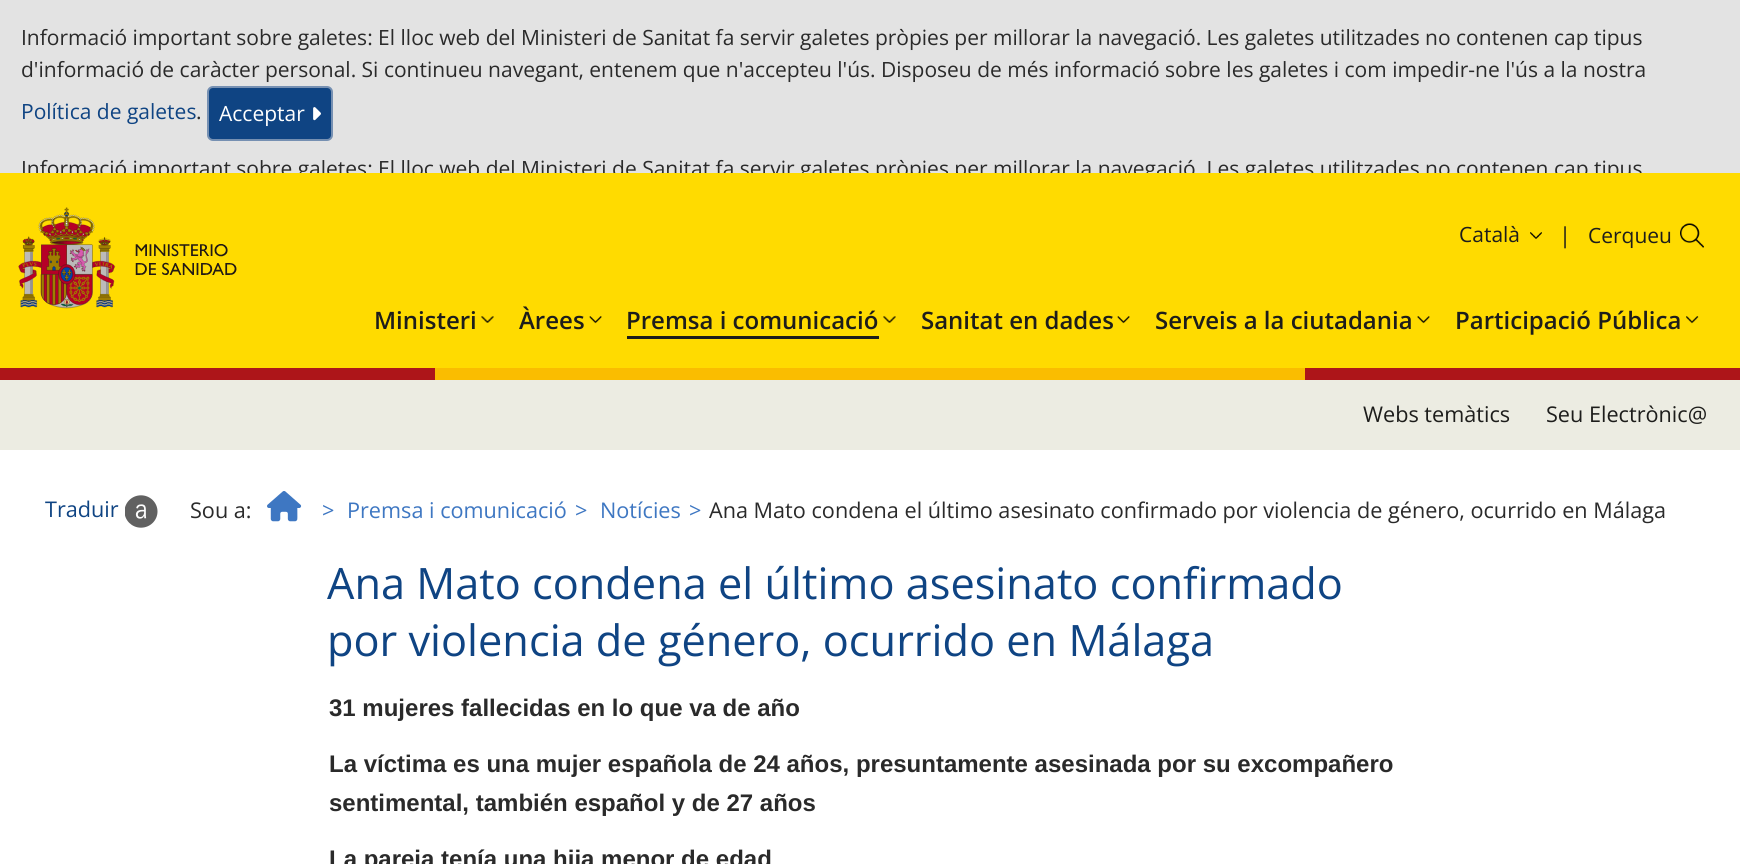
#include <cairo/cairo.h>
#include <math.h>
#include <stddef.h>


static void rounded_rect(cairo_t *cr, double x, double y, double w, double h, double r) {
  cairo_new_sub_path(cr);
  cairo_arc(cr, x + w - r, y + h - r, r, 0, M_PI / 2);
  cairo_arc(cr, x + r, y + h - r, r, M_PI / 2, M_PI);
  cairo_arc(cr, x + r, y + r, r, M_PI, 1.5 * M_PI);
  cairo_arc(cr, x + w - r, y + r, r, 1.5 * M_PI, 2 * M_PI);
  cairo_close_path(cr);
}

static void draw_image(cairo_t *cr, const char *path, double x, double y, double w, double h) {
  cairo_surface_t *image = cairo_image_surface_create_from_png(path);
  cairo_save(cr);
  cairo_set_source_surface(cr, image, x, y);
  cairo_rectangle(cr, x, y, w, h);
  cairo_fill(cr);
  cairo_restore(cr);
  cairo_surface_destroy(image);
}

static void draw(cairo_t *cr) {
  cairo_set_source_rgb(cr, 1, 1, 1);
  cairo_paint(cr);
  cairo_set_source_rgb(cr, 1, 219 / 255.0, 0);
  cairo_rectangle(cr, 0, 173, 1740, 195);
  cairo_fill(cr);
  cairo_set_source_rgb(cr, 227 / 255.0, 227 / 255.0, 227 / 255.0);
  cairo_rectangle(cr, 0, 0, 1740, 173);
  cairo_fill(cr);
  cairo_set_source_rgb(cr, 15 / 255.0, 68 / 255.0, 131 / 255.0);
  rounded_rect(cr, 208, 87, 124, 53, 5);
  cairo_fill_preserve(cr);
  cairo_set_source_rgb(cr, 118 / 255.0, 144 / 255.0, 178 / 255.0);
  cairo_stroke(cr);
  draw_image(cr, "images/1.png", 313, 107, 8, 14);
  draw_image(cr, "images/2.png", 18, 207, 219, 102);
  draw_image(cr, "images/3.png", 1530, 232, 12, 7);
  draw_image(cr, "images/4.png", 1680, 223, 24, 25);
  draw_image(cr, "images/5.png", 481, 316, 13, 7);
  draw_image(cr, "images/6.png", 589, 316, 13, 8);
  draw_image(cr, "images/5.png", 883, 316, 13, 7);
  cairo_set_source_rgb(cr, 29 / 255.0, 29 / 255.0, 27 / 255.0);
  cairo_rectangle(cr, 627, 336, 252, 3);
  cairo_fill(cr);
  draw_image(cr, "images/6.png", 1117, 316, 13, 8);
  draw_image(cr, "images/7.png", 1417, 316, 13, 8);
  draw_image(cr, "images/8.png", 1686, 316, 13, 8);
  cairo_set_source_rgb(cr, 173 / 255.0, 21 / 255.0, 25 / 255.0);
  cairo_rectangle(cr, 0, 368, 435, 12);
  cairo_fill(cr);
  cairo_set_source_rgb(cr, 250 / 255.0, 189 / 255.0, 0);
  cairo_rectangle(cr, 435, 368, 870, 12);
  cairo_fill(cr);
  cairo_set_source_rgb(cr, 173 / 255.0, 21 / 255.0, 25 / 255.0);
  cairo_rectangle(cr, 1305, 368, 435, 12);
  cairo_fill(cr);
  cairo_set_source_rgb(cr, 236 / 255.0, 236 / 255.0, 226 / 255.0);
  cairo_rectangle(cr, 0, 380, 1740, 70);
  cairo_fill(cr);
  draw_image(cr, "images/9.png", 125, 495, 33, 33);
  draw_image(cr, "images/10.png", 267, 491, 35, 31);
  cairo_select_font_face(cr, "Open Sans", CAIRO_FONT_SLANT_NORMAL, CAIRO_FONT_WEIGHT_NORMAL);
  cairo_set_font_size(cr, 21);
  cairo_set_source_rgb(cr, 42 / 255.0, 42 / 255.0, 42 / 255.0);
  cairo_move_to(cr, 21, 45);
  cairo_show_text(cr, "Informació important sobre galetes: El lloc web del Ministeri de Sanitat fa servir galetes pròpies per millorar la navegació. Les galetes utilitzades no contenen cap tipus");
  cairo_move_to(cr, 21, 77);
  cairo_show_text(cr, "d'informació de caràcter personal. Si continueu navegant, entenem que n'accepteu l'ús. Disposeu de més informació sobre les galetes i com impedir-ne l'ús a la nostra");
  cairo_set_source_rgb(cr, 15 / 255.0, 68 / 255.0, 131 / 255.0);
  cairo_move_to(cr, 21, 119);
  cairo_show_text(cr, "Política de galetes");
  cairo_set_source_rgb(cr, 42 / 255.0, 42 / 255.0, 42 / 255.0);
  cairo_move_to(cr, 196, 119);
  cairo_show_text(cr, ".");
  cairo_set_source_rgb(cr, 1, 1, 1);
  cairo_move_to(cr, 219, 121);
  cairo_show_text(cr, "Acceptar");
  cairo_save(cr);
  cairo_rectangle(cr, 0, 0, 1740, 173);
  cairo_clip(cr);
  cairo_set_source_rgb(cr, 42 / 255.0, 42 / 255.0, 42 / 255.0);
  cairo_move_to(cr, 21, 176);
  cairo_show_text(cr, "Informació important sobre galetes: El lloc web del Ministeri de Sanitat fa servir galetes pròpies per millorar la navegació. Les galetes utilitzades no contenen cap tipus");
  cairo_restore(cr);
  cairo_set_source_rgb(cr, 29 / 255.0, 29 / 255.0, 27 / 255.0);
  cairo_move_to(cr, 1459, 242);
  cairo_show_text(cr, "Català");
  cairo_set_font_size(cr, 22);
  cairo_move_to(cr, 1559, 243);
  cairo_show_text(cr, "|");
  cairo_set_font_size(cr, 21);
  cairo_move_to(cr, 1588, 243);
  cairo_show_text(cr, "Cerqueu");
  cairo_select_font_face(cr, "Open Sans SemiBold", CAIRO_FONT_SLANT_NORMAL, CAIRO_FONT_WEIGHT_NORMAL);
  cairo_set_font_size(cr, 24);
  cairo_move_to(cr, 374, 329);
  cairo_show_text(cr, "Ministeri");
  cairo_move_to(cr, 519, 329);
  cairo_show_text(cr, "Àrees");
  cairo_move_to(cr, 626, 329);
  cairo_show_text(cr, "Premsa i comunicació");
  cairo_move_to(cr, 921, 329);
  cairo_show_text(cr, "Sanitat en dades");
  cairo_move_to(cr, 1155, 329);
  cairo_show_text(cr, "Serveis a la ciutadania");
  cairo_move_to(cr, 1455, 329);
  cairo_show_text(cr, "Participació Pública");
  cairo_select_font_face(cr, "Open Sans", CAIRO_FONT_SLANT_NORMAL, CAIRO_FONT_WEIGHT_NORMAL);
  cairo_set_font_size(cr, 21.65);
  cairo_move_to(cr, 1363, 422);
  cairo_show_text(cr, "Webs temàtics");
  cairo_move_to(cr, 1546, 422);
  cairo_show_text(cr, "Seu Electrònic@");
  cairo_set_source_rgb(cr, 15 / 255.0, 68 / 255.0, 131 / 255.0);
  cairo_move_to(cr, 45, 517);
  cairo_show_text(cr, "Traduir");
  cairo_set_source_rgb(cr, 42 / 255.0, 42 / 255.0, 42 / 255.0);
  cairo_move_to(cr, 190, 518);
  cairo_show_text(cr, "Sou a:");
  cairo_set_source_rgb(cr, 62 / 255.0, 119 / 255.0, 194 / 255.0);
  cairo_move_to(cr, 322, 518);
  cairo_show_text(cr, ">");
  cairo_move_to(cr, 347, 518);
  cairo_show_text(cr, "Premsa i comunicació");
  cairo_move_to(cr, 575, 518);
  cairo_show_text(cr, ">");
  cairo_move_to(cr, 600, 518);
  cairo_show_text(cr, "Notícies");
  cairo_move_to(cr, 689, 518);
  cairo_show_text(cr, ">");
  cairo_set_source_rgb(cr, 42 / 255.0, 42 / 255.0, 42 / 255.0);
  cairo_move_to(cr, 709, 518);
  cairo_show_text(cr, "Ana Mato condena el último asesinato confirmado por violencia de género, ocurrido en Málaga");
  cairo_set_font_size(cr, 43.3);
  cairo_set_source_rgb(cr, 15 / 255.0, 68 / 255.0, 131 / 255.0);
  cairo_move_to(cr, 327, 599);
  cairo_show_text(cr, "Ana Mato condena el último asesinato confirmado");
  cairo_move_to(cr, 327, 656);
  cairo_show_text(cr, "por violencia de género, ocurrido en Málaga");
  cairo_select_font_face(cr, "Liberation Sans", CAIRO_FONT_SLANT_NORMAL, CAIRO_FONT_WEIGHT_BOLD);
  cairo_set_font_size(cr, 24);
  cairo_set_source_rgb(cr, 42 / 255.0, 42 / 255.0, 42 / 255.0);
  cairo_move_to(cr, 329, 716);
  cairo_show_text(cr, "31 mujeres fallecidas en lo que va de año");
  cairo_move_to(cr, 329, 772);
  cairo_show_text(cr, "La víctima es una mujer española de 24 años, presuntamente asesinada por su excompañero");
  cairo_move_to(cr, 329, 811);
  cairo_show_text(cr, "sentimental, también español y de 27 años");
  cairo_move_to(cr, 329, 867);
  cairo_show_text(cr, "La pareja tenía una hija menor de edad");
}

int main(void) {
  cairo_surface_t *surface = cairo_image_surface_create(CAIRO_FORMAT_RGB24, 1740, 864);
  cairo_t *cr = cairo_create(surface);
  cairo_font_options_t *options = cairo_font_options_create();
  cairo_font_options_set_hint_metrics(options, CAIRO_HINT_METRICS_OFF);
  cairo_font_options_set_hint_style(options, CAIRO_HINT_STYLE_NONE);
  cairo_set_font_options(cr, options);
  cairo_set_miter_limit(cr, 4);
  draw(cr);
  cairo_surface_write_to_png(surface, "out.png");
  cairo_font_options_destroy(options);
  cairo_destroy(cr);
  cairo_surface_destroy(surface);
  return 0;
}
